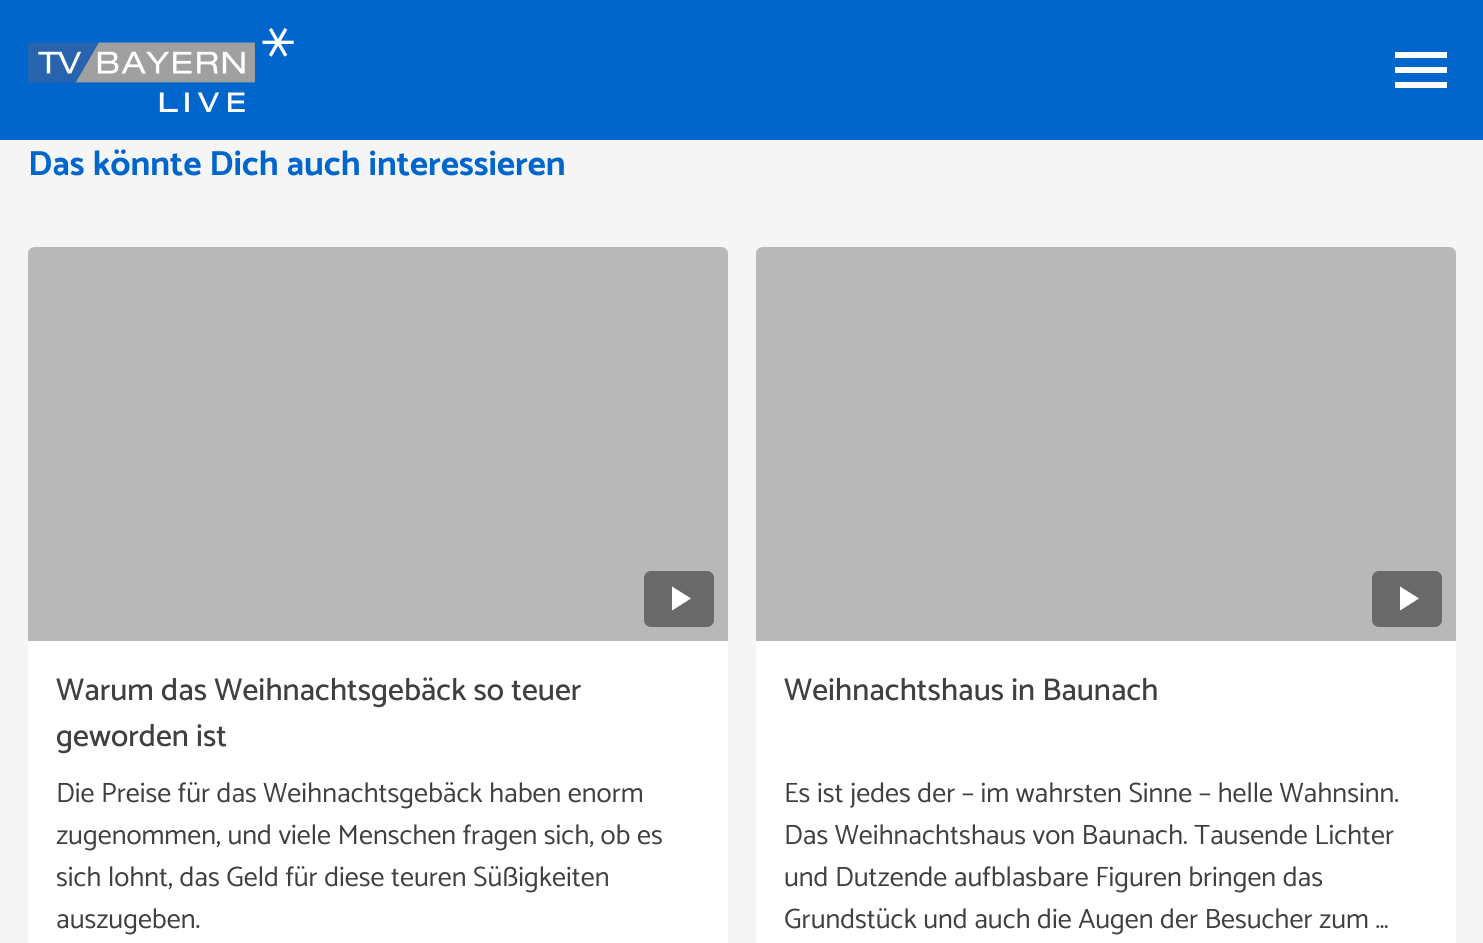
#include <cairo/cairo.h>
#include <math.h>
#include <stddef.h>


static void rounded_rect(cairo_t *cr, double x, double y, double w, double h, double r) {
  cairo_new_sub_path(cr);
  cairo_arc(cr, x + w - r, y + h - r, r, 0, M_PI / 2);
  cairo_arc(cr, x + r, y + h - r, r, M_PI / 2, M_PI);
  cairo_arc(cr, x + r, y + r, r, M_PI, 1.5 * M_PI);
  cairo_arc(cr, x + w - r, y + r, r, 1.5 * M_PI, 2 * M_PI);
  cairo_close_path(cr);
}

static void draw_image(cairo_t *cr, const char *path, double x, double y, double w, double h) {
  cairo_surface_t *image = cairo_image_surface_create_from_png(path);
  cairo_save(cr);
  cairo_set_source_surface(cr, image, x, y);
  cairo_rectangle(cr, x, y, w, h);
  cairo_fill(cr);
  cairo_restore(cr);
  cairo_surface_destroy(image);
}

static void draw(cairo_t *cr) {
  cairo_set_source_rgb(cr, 245 / 255.0, 245 / 255.0, 245 / 255.0);
  cairo_paint(cr);
  cairo_set_source_rgb(cr, 0, 102 / 255.0, 204 / 255.0);
  cairo_rectangle(cr, 0, 0, 1483, 140);
  cairo_fill(cr);
  draw_image(cr, "images/1.png", 28, 28, 266, 84);
  cairo_set_source_rgb(cr, 1, 1, 1);
  cairo_new_path(cr);
  cairo_move_to(cr, 1395, 52);
  cairo_line_to(cr, 1447, 52);
  cairo_line_to(cr, 1447, 58);
  cairo_line_to(cr, 1395, 58);
  cairo_close_path(cr);
  cairo_move_to(cr, 1395, 73);
  cairo_line_to(cr, 1395, 67);
  cairo_line_to(cr, 1447, 67);
  cairo_line_to(cr, 1447, 73);
  cairo_close_path(cr);
  cairo_move_to(cr, 1395, 88);
  cairo_line_to(cr, 1395, 82);
  cairo_line_to(cr, 1447, 82);
  cairo_line_to(cr, 1447, 88);
  cairo_close_path(cr);
  cairo_fill(cr);
  rounded_rect(cr, 28, 247, 700, 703, 7);
  cairo_fill(cr);
  cairo_set_source_rgba(cr, 0, 0, 0, 0.2);
  cairo_new_path(cr);
  cairo_move_to(cr, 35, 247);
  cairo_line_to(cr, 721, 247);
  cairo_curve_to(cr, 725, 247, 728, 250, 728, 254);
  cairo_line_to(cr, 728, 641);
  cairo_line_to(cr, 28, 641);
  cairo_line_to(cr, 28, 254);
  cairo_curve_to(cr, 28, 250, 31, 247, 35, 247);
  cairo_close_path(cr);
  cairo_fill(cr);
  cairo_set_source_rgba(cr, 0, 0, 0, 0.1);
  cairo_new_path(cr);
  cairo_move_to(cr, 35, 247);
  cairo_line_to(cr, 721, 247);
  cairo_curve_to(cr, 725, 247, 728, 250, 728, 254);
  cairo_line_to(cr, 728, 641);
  cairo_line_to(cr, 28, 641);
  cairo_line_to(cr, 28, 254);
  cairo_curve_to(cr, 28, 250, 31, 247, 35, 247);
  cairo_close_path(cr);
  cairo_fill(cr);
  cairo_set_source_rgb(cr, 105 / 255.0, 105 / 255.0, 105 / 255.0);
  rounded_rect(cr, 644, 571, 70, 56, 7);
  cairo_fill(cr);
  cairo_set_source_rgb(cr, 1, 1, 1);
  cairo_new_path(cr);
  cairo_move_to(cr, 672, 586.5);
  cairo_line_to(cr, 691, 598.5);
  cairo_line_to(cr, 672, 610.5);
  cairo_close_path(cr);
  cairo_fill(cr);
  rounded_rect(cr, 756, 247, 700, 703, 7);
  cairo_fill(cr);
  cairo_set_source_rgba(cr, 0, 0, 0, 0.2);
  cairo_new_path(cr);
  cairo_move_to(cr, 763, 247);
  cairo_line_to(cr, 1449, 247);
  cairo_curve_to(cr, 1453, 247, 1456, 250, 1456, 254);
  cairo_line_to(cr, 1456, 641);
  cairo_line_to(cr, 756, 641);
  cairo_line_to(cr, 756, 254);
  cairo_curve_to(cr, 756, 250, 759, 247, 763, 247);
  cairo_close_path(cr);
  cairo_fill(cr);
  cairo_set_source_rgba(cr, 0, 0, 0, 0.1);
  cairo_new_path(cr);
  cairo_move_to(cr, 763, 247);
  cairo_line_to(cr, 1449, 247);
  cairo_curve_to(cr, 1453, 247, 1456, 250, 1456, 254);
  cairo_line_to(cr, 1456, 641);
  cairo_line_to(cr, 756, 641);
  cairo_line_to(cr, 756, 254);
  cairo_curve_to(cr, 756, 250, 759, 247, 763, 247);
  cairo_close_path(cr);
  cairo_fill(cr);
  cairo_set_source_rgb(cr, 105 / 255.0, 105 / 255.0, 105 / 255.0);
  rounded_rect(cr, 1372, 571, 70, 56, 7);
  cairo_fill(cr);
  cairo_set_source_rgb(cr, 1, 1, 1);
  cairo_new_path(cr);
  cairo_move_to(cr, 1400, 586.5);
  cairo_line_to(cr, 1419, 598.5);
  cairo_line_to(cr, 1400, 610.5);
  cairo_close_path(cr);
  cairo_fill(cr);
  cairo_select_font_face(cr, "Catamaran", CAIRO_FONT_SLANT_NORMAL, CAIRO_FONT_WEIGHT_BOLD);
  cairo_set_font_size(cr, 35);
  cairo_set_source_rgb(cr, 0, 102 / 255.0, 204 / 255.0);
  cairo_move_to(cr, 28, 175);
  cairo_show_text(cr, "Das könnte Dich auch interessieren");
  cairo_select_font_face(cr, "Catamaran Medium", CAIRO_FONT_SLANT_NORMAL, CAIRO_FONT_WEIGHT_NORMAL);
  cairo_set_font_size(cr, 31.5);
  cairo_set_source_rgb(cr, 64 / 255.0, 64 / 255.0, 64 / 255.0);
  cairo_move_to(cr, 56, 700);
  cairo_show_text(cr, "Warum das Weihnachtsgebäck so teuer");
  cairo_move_to(cr, 56, 746);
  cairo_show_text(cr, "geworden ist");
  cairo_select_font_face(cr, "Catamaran", CAIRO_FONT_SLANT_NORMAL, CAIRO_FONT_WEIGHT_NORMAL);
  cairo_set_font_size(cr, 28);
  cairo_move_to(cr, 56, 802);
  cairo_show_text(cr, "Die Preise für das Weihnachtsgebäck haben enorm");
  cairo_move_to(cr, 56, 844);
  cairo_show_text(cr, "zugenommen, und viele Menschen fragen sich, ob es");
  cairo_move_to(cr, 56, 886);
  cairo_show_text(cr, "sich lohnt, das Geld für diese teuren Süßigkeiten");
  cairo_move_to(cr, 56, 928);
  cairo_show_text(cr, "auszugeben.");
  cairo_select_font_face(cr, "Catamaran Medium", CAIRO_FONT_SLANT_NORMAL, CAIRO_FONT_WEIGHT_NORMAL);
  cairo_set_font_size(cr, 31.5);
  cairo_move_to(cr, 784, 700);
  cairo_show_text(cr, "Weihnachtshaus in Baunach");
  cairo_select_font_face(cr, "Catamaran", CAIRO_FONT_SLANT_NORMAL, CAIRO_FONT_WEIGHT_NORMAL);
  cairo_set_font_size(cr, 28);
  cairo_move_to(cr, 784, 802);
  cairo_show_text(cr, "Es ist jedes der – im wahrsten Sinne – helle Wahnsinn.");
  cairo_move_to(cr, 784, 844);
  cairo_show_text(cr, "Das Weihnachtshaus von Baunach. Tausende Lichter");
  cairo_move_to(cr, 784, 886);
  cairo_show_text(cr, "und Dutzende aufblasbare Figuren bringen das");
  cairo_move_to(cr, 784, 928);
  cairo_show_text(cr, "Grundstück und auch die Augen der Besucher zum …");
}

int main(void) {
  cairo_surface_t *surface = cairo_image_surface_create(CAIRO_FORMAT_RGB24, 1483, 943);
  cairo_t *cr = cairo_create(surface);
  cairo_font_options_t *options = cairo_font_options_create();
  cairo_font_options_set_hint_metrics(options, CAIRO_HINT_METRICS_OFF);
  cairo_font_options_set_hint_style(options, CAIRO_HINT_STYLE_NONE);
  cairo_set_font_options(cr, options);
  cairo_set_miter_limit(cr, 4);
  draw(cr);
  cairo_surface_write_to_png(surface, "out.png");
  cairo_font_options_destroy(options);
  cairo_destroy(cr);
  cairo_surface_destroy(surface);
  return 0;
}
